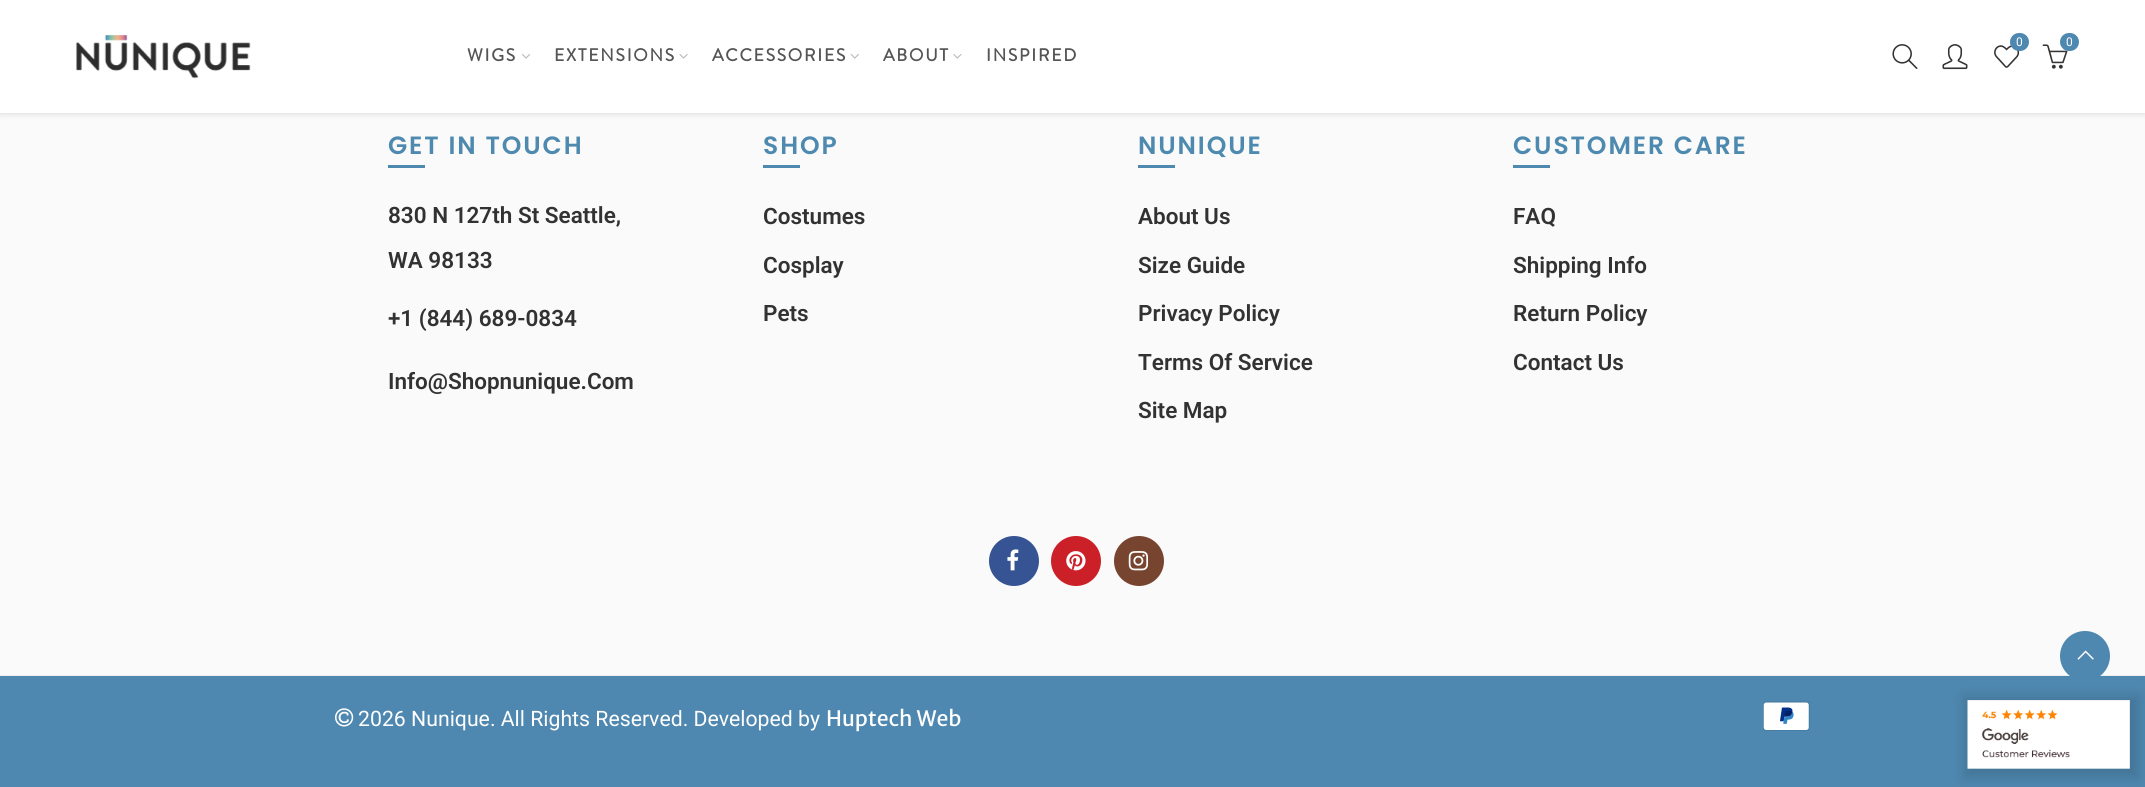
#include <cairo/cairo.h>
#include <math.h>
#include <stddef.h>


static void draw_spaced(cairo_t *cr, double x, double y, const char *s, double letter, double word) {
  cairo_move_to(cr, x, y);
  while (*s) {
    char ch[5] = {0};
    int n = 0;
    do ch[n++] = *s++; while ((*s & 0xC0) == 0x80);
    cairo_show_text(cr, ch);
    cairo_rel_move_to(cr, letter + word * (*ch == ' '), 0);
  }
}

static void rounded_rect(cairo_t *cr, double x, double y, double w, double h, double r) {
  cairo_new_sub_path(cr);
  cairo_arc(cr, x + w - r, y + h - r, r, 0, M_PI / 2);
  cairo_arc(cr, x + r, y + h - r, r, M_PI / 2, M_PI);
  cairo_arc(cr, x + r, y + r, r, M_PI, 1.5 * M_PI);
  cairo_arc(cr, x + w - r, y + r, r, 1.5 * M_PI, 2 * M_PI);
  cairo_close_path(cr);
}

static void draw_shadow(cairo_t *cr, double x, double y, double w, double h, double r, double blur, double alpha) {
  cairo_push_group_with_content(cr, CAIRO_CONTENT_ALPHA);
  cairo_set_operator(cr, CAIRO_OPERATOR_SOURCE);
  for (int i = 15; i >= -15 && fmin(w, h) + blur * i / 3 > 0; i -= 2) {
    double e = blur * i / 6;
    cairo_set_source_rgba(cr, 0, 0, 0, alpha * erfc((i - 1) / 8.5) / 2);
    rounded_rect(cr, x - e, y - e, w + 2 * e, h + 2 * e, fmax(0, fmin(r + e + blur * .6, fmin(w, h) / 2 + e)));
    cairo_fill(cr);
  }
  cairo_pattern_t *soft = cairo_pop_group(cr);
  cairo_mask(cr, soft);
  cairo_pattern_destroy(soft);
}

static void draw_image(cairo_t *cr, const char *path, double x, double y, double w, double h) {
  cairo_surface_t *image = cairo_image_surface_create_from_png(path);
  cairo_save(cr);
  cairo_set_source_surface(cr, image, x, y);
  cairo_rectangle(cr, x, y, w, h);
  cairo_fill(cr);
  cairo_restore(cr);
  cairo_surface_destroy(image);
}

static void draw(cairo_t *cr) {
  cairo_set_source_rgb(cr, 250 / 255.0, 250 / 255.0, 250 / 255.0);
  cairo_paint(cr);
  cairo_set_source_rgb(cr, 190 / 255.0, 190 / 255.0, 190 / 255.0);
  draw_shadow(cr, 0, 1, 2145, 113, 0, 3, 0.5);
  cairo_set_source_rgb(cr, 1, 1, 1);
  cairo_rectangle(cr, 0, 0, 2145, 113);
  cairo_fill(cr);
  draw_image(cr, "images/1.png", 76, 35, 175, 44);
  draw_image(cr, "images/2.png", 1994, 45, 26, 23);
  cairo_set_source_rgb(cr, 78 / 255.0, 135 / 255.0, 175 / 255.0);
  rounded_rect(cr, 2010, 33, 19, 18, 9);
  cairo_fill(cr);
  draw_image(cr, "images/3.png", 2042, 44, 26, 25);
  rounded_rect(cr, 2060, 33, 19, 18, 9);
  cairo_fill(cr);
  draw_image(cr, "images/4.png", 1892, 44, 26, 25);
  draw_image(cr, "images/5.png", 1942, 44, 26, 26);
  draw_image(cr, "images/6.png", 522, 54, 9, 5);
  draw_image(cr, "images/7.png", 679, 54, 9, 5);
  draw_image(cr, "images/8.png", 850, 54, 9, 5);
  draw_image(cr, "images/9.png", 953, 54, 9, 5);
  cairo_set_source_rgb(cr, 78 / 255.0, 138 / 255.0, 175 / 255.0);
  cairo_rectangle(cr, 388, 165, 37, 3);
  cairo_fill(cr);
  cairo_rectangle(cr, 763, 165, 37, 3);
  cairo_fill(cr);
  cairo_rectangle(cr, 1138, 165, 37, 3);
  cairo_fill(cr);
  cairo_rectangle(cr, 1513, 165, 37, 3);
  cairo_fill(cr);
  cairo_set_source_rgb(cr, 54 / 255.0, 84 / 255.0, 147 / 255.0);
  cairo_arc(cr, 1014, 561, 25, 0, 2 * M_PI);
  cairo_fill(cr);
  draw_image(cr, "images/10.png", 1007, 549, 12, 22);
  cairo_set_source_rgb(cr, 203 / 255.0, 32 / 255.0, 39 / 255.0);
  cairo_arc(cr, 1076, 561, 25, 0, 2 * M_PI);
  cairo_fill(cr);
  draw_image(cr, "images/11.png", 1066, 551, 20, 20);
  cairo_set_source_rgb(cr, 119 / 255.0, 68 / 255.0, 48 / 255.0);
  cairo_arc(cr, 1139, 561, 25, 0, 2 * M_PI);
  cairo_fill(cr);
  draw_image(cr, "images/12.png", 1128, 551, 21, 20);
  cairo_set_source_rgb(cr, 78 / 255.0, 135 / 255.0, 175 / 255.0);
  cairo_rectangle(cr, 0, 676, 2145, 111);
  cairo_fill(cr);
  cairo_set_source_rgb(cr, 0, 0, 0);
  draw_shadow(cr, 1964, 696, 175, 82, 0, 5.5, 0.13);
  draw_image(cr, "images/13.png", 1967, 700, 163, 69);
  cairo_set_source_rgb(cr, 238 / 255.0, 238 / 255.0, 238 / 255.0);
  cairo_rectangle(cr, 0, 675, 2145, 1);
  cairo_fill(cr);
  draw_image(cr, "images/14.png", 335, 708, 19, 19);
  draw_image(cr, "images/15.png", 1763, 701, 47, 30);
  cairo_set_source_rgb(cr, 78 / 255.0, 135 / 255.0, 175 / 255.0);
  cairo_arc(cr, 2085, 656, 25, 0, 2 * M_PI);
  cairo_fill(cr);
  draw_image(cr, "images/16.png", 2077, 650, 17, 10);
  cairo_select_font_face(cr, "Roboto", CAIRO_FONT_SLANT_NORMAL, CAIRO_FONT_WEIGHT_NORMAL);
  cairo_set_font_size(cr, 12);
  cairo_set_source_rgb(cr, 1, 1, 1);
  cairo_move_to(cr, 2016, 46);
  cairo_show_text(cr, "0");
  cairo_move_to(cr, 2066, 46);
  cairo_show_text(cr, "0");
  cairo_select_font_face(cr, "Brandon Grotesque", CAIRO_FONT_SLANT_NORMAL, CAIRO_FONT_WEIGHT_BOLD);
  cairo_set_font_size(cr, 17.5);
  cairo_set_source_rgb(cr, 85 / 255.0, 85 / 255.0, 85 / 255.0);
  draw_spaced(cr, 467, 61, "WIGS", 1.75, 0);
  draw_spaced(cr, 554, 61, "EXTENSIONS", 1.75, 0);
  draw_spaced(cr, 712, 61, "ACCESSORIES", 1.75, 0);
  draw_spaced(cr, 883, 61, "ABOUT", 1.75, 0);
  draw_spaced(cr, 986, 61, "INSPIRED", 1.75, 0);
  cairo_select_font_face(cr, "Poppins SemiBold", CAIRO_FONT_SLANT_NORMAL, CAIRO_FONT_WEIGHT_NORMAL);
  cairo_set_font_size(cr, 25);
  cairo_set_source_rgb(cr, 78 / 255.0, 138 / 255.0, 175 / 255.0);
  draw_spaced(cr, 388, 154, "GET IN TOUCH", 1.9, 0);
  cairo_select_font_face(cr, "Roboto SemiBold", CAIRO_FONT_SLANT_NORMAL, CAIRO_FONT_WEIGHT_NORMAL);
  cairo_set_font_size(cr, 22.5);
  cairo_set_source_rgb(cr, 50 / 255.0, 50 / 255.0, 50 / 255.0);
  cairo_move_to(cr, 388, 223);
  cairo_show_text(cr, "830 N 127th St Seattle,");
  cairo_move_to(cr, 388, 268);
  cairo_show_text(cr, "WA 98133");
  cairo_move_to(cr, 388, 326);
  cairo_show_text(cr, "+1 (844) 689-0834");
  cairo_move_to(cr, 388, 389);
  cairo_show_text(cr, "Info@Shopnunique.Com");
  cairo_select_font_face(cr, "Poppins SemiBold", CAIRO_FONT_SLANT_NORMAL, CAIRO_FONT_WEIGHT_NORMAL);
  cairo_set_font_size(cr, 25);
  cairo_set_source_rgb(cr, 78 / 255.0, 138 / 255.0, 175 / 255.0);
  draw_spaced(cr, 763, 154, "SHOP", 1.9, 0);
  cairo_select_font_face(cr, "Roboto SemiBold", CAIRO_FONT_SLANT_NORMAL, CAIRO_FONT_WEIGHT_NORMAL);
  cairo_set_font_size(cr, 22.5);
  cairo_set_source_rgb(cr, 50 / 255.0, 50 / 255.0, 50 / 255.0);
  cairo_move_to(cr, 763, 224);
  cairo_show_text(cr, "Costumes");
  cairo_move_to(cr, 763, 273);
  cairo_show_text(cr, "Cosplay");
  cairo_move_to(cr, 763, 321);
  cairo_show_text(cr, "Pets");
  cairo_select_font_face(cr, "Poppins SemiBold", CAIRO_FONT_SLANT_NORMAL, CAIRO_FONT_WEIGHT_NORMAL);
  cairo_set_font_size(cr, 25);
  cairo_set_source_rgb(cr, 78 / 255.0, 138 / 255.0, 175 / 255.0);
  draw_spaced(cr, 1138, 154, "NUNIQUE", 1.9, 0);
  cairo_select_font_face(cr, "Roboto SemiBold", CAIRO_FONT_SLANT_NORMAL, CAIRO_FONT_WEIGHT_NORMAL);
  cairo_set_font_size(cr, 22.5);
  cairo_set_source_rgb(cr, 50 / 255.0, 50 / 255.0, 50 / 255.0);
  cairo_move_to(cr, 1138, 224);
  cairo_show_text(cr, "About Us");
  cairo_move_to(cr, 1138, 273);
  cairo_show_text(cr, "Size Guide");
  cairo_move_to(cr, 1138, 321);
  cairo_show_text(cr, "Privacy Policy");
  cairo_move_to(cr, 1138, 370);
  cairo_show_text(cr, "Terms Of Service");
  cairo_move_to(cr, 1138, 418);
  cairo_show_text(cr, "Site Map");
  cairo_select_font_face(cr, "Poppins SemiBold", CAIRO_FONT_SLANT_NORMAL, CAIRO_FONT_WEIGHT_NORMAL);
  cairo_set_font_size(cr, 25);
  cairo_set_source_rgb(cr, 78 / 255.0, 138 / 255.0, 175 / 255.0);
  draw_spaced(cr, 1513, 154, "CUSTOMER CARE", 1.9, 0);
  cairo_select_font_face(cr, "Roboto SemiBold", CAIRO_FONT_SLANT_NORMAL, CAIRO_FONT_WEIGHT_NORMAL);
  cairo_set_font_size(cr, 22.5);
  cairo_set_source_rgb(cr, 50 / 255.0, 50 / 255.0, 50 / 255.0);
  cairo_move_to(cr, 1513, 224);
  cairo_show_text(cr, "FAQ");
  cairo_move_to(cr, 1513, 273);
  cairo_show_text(cr, "Shipping Info");
  cairo_move_to(cr, 1513, 321);
  cairo_show_text(cr, "Return Policy");
  cairo_move_to(cr, 1513, 370);
  cairo_show_text(cr, "Contact Us");
  cairo_select_font_face(cr, "Roboto", CAIRO_FONT_SLANT_NORMAL, CAIRO_FONT_WEIGHT_NORMAL);
  cairo_set_font_size(cr, 21.25);
  cairo_set_source_rgb(cr, 1, 1, 1);
  cairo_move_to(cr, 358, 726);
  cairo_show_text(cr, "2026 Nunique. All Rights Reserved. Developed by");
  cairo_select_font_face(cr, "Merriweather Sans", CAIRO_FONT_SLANT_NORMAL, CAIRO_FONT_WEIGHT_NORMAL);
  cairo_move_to(cr, 826, 726);
  cairo_show_text(cr, "Huptech Web");
}

int main(void) {
  cairo_surface_t *surface = cairo_image_surface_create(CAIRO_FORMAT_RGB24, 2145, 787);
  cairo_t *cr = cairo_create(surface);
  cairo_font_options_t *options = cairo_font_options_create();
  cairo_font_options_set_hint_metrics(options, CAIRO_HINT_METRICS_OFF);
  cairo_font_options_set_hint_style(options, CAIRO_HINT_STYLE_NONE);
  cairo_set_font_options(cr, options);
  cairo_set_miter_limit(cr, 4);
  draw(cr);
  cairo_surface_write_to_png(surface, "out.png");
  cairo_font_options_destroy(options);
  cairo_destroy(cr);
  cairo_surface_destroy(surface);
  return 0;
}
